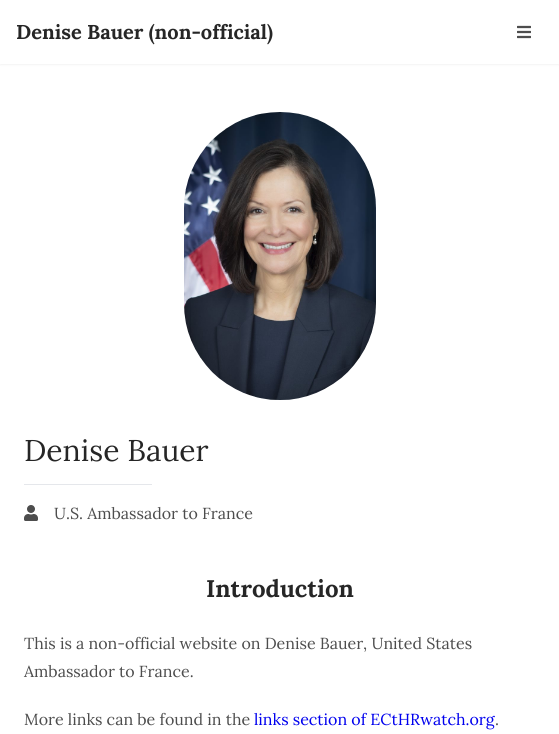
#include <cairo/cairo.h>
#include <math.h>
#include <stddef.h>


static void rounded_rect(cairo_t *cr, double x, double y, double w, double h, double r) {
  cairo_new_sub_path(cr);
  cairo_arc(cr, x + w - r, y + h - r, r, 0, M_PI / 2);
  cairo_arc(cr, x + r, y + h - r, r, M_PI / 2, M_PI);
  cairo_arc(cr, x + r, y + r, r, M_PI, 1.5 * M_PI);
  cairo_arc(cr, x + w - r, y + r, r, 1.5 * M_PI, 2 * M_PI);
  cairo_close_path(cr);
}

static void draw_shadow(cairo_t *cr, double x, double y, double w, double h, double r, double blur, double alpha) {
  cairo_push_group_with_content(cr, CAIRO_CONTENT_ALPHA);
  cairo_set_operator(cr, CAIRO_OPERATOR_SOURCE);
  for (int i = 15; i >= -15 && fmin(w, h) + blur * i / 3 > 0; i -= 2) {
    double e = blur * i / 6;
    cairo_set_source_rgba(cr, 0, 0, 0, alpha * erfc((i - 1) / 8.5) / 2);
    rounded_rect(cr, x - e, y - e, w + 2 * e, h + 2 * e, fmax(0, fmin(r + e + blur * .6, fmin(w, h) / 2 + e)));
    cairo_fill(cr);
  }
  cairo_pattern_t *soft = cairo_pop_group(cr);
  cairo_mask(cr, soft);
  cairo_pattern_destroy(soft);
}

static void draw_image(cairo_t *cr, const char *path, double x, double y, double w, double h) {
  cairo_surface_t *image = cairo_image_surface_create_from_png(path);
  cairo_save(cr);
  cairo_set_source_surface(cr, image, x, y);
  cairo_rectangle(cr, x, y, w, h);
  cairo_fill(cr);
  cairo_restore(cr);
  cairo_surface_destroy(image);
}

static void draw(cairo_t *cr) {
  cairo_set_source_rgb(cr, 1, 1, 1);
  cairo_paint(cr);
  cairo_set_source_rgb(cr, 0, 0, 0);
  draw_shadow(cr, 0, 1, 559, 64, 0, 1, 0.05);
  cairo_set_source_rgb(cr, 1, 1, 1);
  cairo_rectangle(cr, 0, 0, 559, 64);
  cairo_fill(cr);
  draw_image(cr, "images/1.png", 517, 25, 14, 14);
  draw_image(cr, "images/2.png", 184, 112, 192, 288);
  cairo_set_source_rgb(cr, 229 / 255.0, 231 / 255.0, 235 / 255.0);
  cairo_rectangle(cr, 24, 484, 128, 1);
  cairo_fill(cr);
  draw_image(cr, "images/3.png", 24, 505, 14, 16);
  cairo_select_font_face(cr, "Lora", CAIRO_FONT_SLANT_NORMAL, CAIRO_FONT_WEIGHT_BOLD);
  cairo_set_font_size(cr, 20);
  cairo_set_source_rgb(cr, 38 / 255.0, 38 / 255.0, 38 / 255.0);
  cairo_move_to(cr, 16, 39);
  cairo_show_text(cr, "Denise Bauer (non-official)");
  cairo_select_font_face(cr, "Lora", CAIRO_FONT_SLANT_NORMAL, CAIRO_FONT_WEIGHT_NORMAL);
  cairo_set_font_size(cr, 30);
  cairo_move_to(cr, 24, 461);
  cairo_show_text(cr, "Denise Bauer");
  cairo_set_font_size(cr, 16);
  cairo_set_source_rgb(cr, 77 / 255.0, 77 / 255.0, 77 / 255.0);
  cairo_move_to(cr, 54, 519);
  cairo_show_text(cr, "U.S. Ambassador to France");
  cairo_select_font_face(cr, "Lora", CAIRO_FONT_SLANT_NORMAL, CAIRO_FONT_WEIGHT_BOLD);
  cairo_set_font_size(cr, 24);
  cairo_set_source_rgb(cr, 38 / 255.0, 38 / 255.0, 38 / 255.0);
  cairo_move_to(cr, 206, 597);
  cairo_show_text(cr, "Introduction");
  cairo_select_font_face(cr, "Lora", CAIRO_FONT_SLANT_NORMAL, CAIRO_FONT_WEIGHT_NORMAL);
  cairo_set_font_size(cr, 16);
  cairo_set_source_rgb(cr, 77 / 255.0, 77 / 255.0, 77 / 255.0);
  cairo_move_to(cr, 24, 649);
  cairo_show_text(cr, "This is a non-official website on Denise Bauer, United States");
  cairo_move_to(cr, 24, 677);
  cairo_show_text(cr, "Ambassador to France.");
  cairo_move_to(cr, 24, 725);
  cairo_show_text(cr, "More links can be found in the");
  cairo_set_source_rgb(cr, 0, 0, 238 / 255.0);
  cairo_move_to(cr, 254, 725);
  cairo_show_text(cr, "links section of ECtHRwatch.org");
  cairo_set_source_rgb(cr, 77 / 255.0, 77 / 255.0, 77 / 255.0);
  cairo_move_to(cr, 495, 725);
  cairo_show_text(cr, ".");
}

int main(void) {
  cairo_surface_t *surface = cairo_image_surface_create(CAIRO_FORMAT_RGB24, 559, 734);
  cairo_t *cr = cairo_create(surface);
  cairo_font_options_t *options = cairo_font_options_create();
  cairo_font_options_set_hint_metrics(options, CAIRO_HINT_METRICS_OFF);
  cairo_font_options_set_hint_style(options, CAIRO_HINT_STYLE_NONE);
  cairo_set_font_options(cr, options);
  cairo_set_miter_limit(cr, 4);
  draw(cr);
  cairo_surface_write_to_png(surface, "out.png");
  cairo_font_options_destroy(options);
  cairo_destroy(cr);
  cairo_surface_destroy(surface);
  return 0;
}
